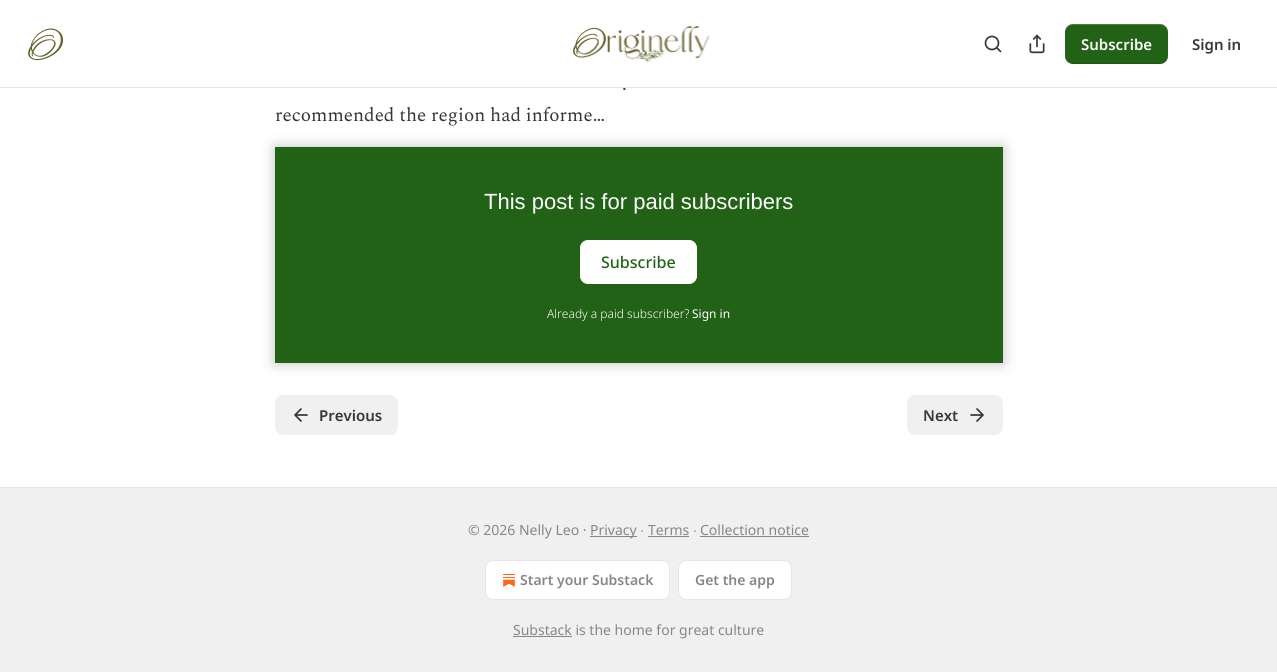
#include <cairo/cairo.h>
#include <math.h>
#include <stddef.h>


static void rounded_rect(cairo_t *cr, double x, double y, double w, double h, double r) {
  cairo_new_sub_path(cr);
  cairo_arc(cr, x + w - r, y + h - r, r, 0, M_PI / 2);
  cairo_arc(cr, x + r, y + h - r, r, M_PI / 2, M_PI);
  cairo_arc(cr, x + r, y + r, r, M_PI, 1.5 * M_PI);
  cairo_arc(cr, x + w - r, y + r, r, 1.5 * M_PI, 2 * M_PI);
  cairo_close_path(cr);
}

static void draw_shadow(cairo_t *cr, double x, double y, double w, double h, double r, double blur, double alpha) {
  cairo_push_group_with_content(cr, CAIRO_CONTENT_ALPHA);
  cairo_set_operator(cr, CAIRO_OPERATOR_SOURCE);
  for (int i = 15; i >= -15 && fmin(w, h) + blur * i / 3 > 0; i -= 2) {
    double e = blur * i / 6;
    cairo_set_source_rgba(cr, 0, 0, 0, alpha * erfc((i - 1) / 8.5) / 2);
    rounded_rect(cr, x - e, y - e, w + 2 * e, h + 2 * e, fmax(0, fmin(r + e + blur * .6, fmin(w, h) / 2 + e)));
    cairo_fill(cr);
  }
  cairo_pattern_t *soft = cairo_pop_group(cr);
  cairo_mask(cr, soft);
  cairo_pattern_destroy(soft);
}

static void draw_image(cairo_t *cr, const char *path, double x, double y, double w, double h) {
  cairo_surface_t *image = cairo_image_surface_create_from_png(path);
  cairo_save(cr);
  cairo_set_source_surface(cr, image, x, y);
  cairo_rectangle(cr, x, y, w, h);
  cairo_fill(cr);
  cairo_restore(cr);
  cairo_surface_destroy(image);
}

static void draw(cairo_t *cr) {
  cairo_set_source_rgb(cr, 1, 1, 1);
  cairo_paint(cr);
  draw_image(cr, "images/1.png", 28, 28, 35, 33);
  draw_image(cr, "images/2.png", 573, 26, 136, 36);
  cairo_arc(cr, 992, 43, 6.5, 0, 2 * M_PI);
  cairo_set_source_rgb(cr, 54 / 255.0, 55 / 255.0, 55 / 255.0);
  cairo_set_line_width(cr, 1.7);
  cairo_stroke(cr);
  cairo_new_path(cr);
  cairo_move_to(cr, 1000.5, 51.5);
  cairo_line_to(cr, 997, 48);
  cairo_set_line_cap(cr, CAIRO_LINE_CAP_ROUND);
  cairo_set_line_join(cr, CAIRO_LINE_JOIN_ROUND);
  cairo_stroke(cr);
  draw_image(cr, "images/3.png", 1029, 34, 16, 20);
  cairo_set_source_rgb(cr, 34 / 255.0, 98 / 255.0, 22 / 255.0);
  rounded_rect(cr, 1065, 24, 103, 40, 8);
  cairo_fill(cr);
  cairo_set_source_rgba(cr, 0, 0, 0, 0.1);
  cairo_new_path(cr);
  cairo_move_to(cr, 1065, 55);
  cairo_curve_to(cr, 1065, 67, 1079, 64, 1088, 64);
  cairo_line_to(cr, 1146, 64);
  cairo_curve_to(cr, 1154, 64, 1168, 67, 1168, 55);
  cairo_curve_to(cr, 1168, 59, 1164, 63, 1160, 63);
  cairo_line_to(cr, 1073, 63);
  cairo_curve_to(cr, 1069, 63, 1065, 59, 1065, 55);
  cairo_close_path(cr);
  cairo_fill(cr);
  cairo_set_source_rgba(cr, 1, 1, 1, 0.2);
  cairo_new_path(cr);
  cairo_move_to(cr, 1073, 25);
  cairo_line_to(cr, 1160, 25);
  cairo_curve_to(cr, 1164, 25, 1168, 29, 1168, 33);
  cairo_curve_to(cr, 1168, 21, 1154, 24, 1146, 24);
  cairo_line_to(cr, 1088, 24);
  cairo_curve_to(cr, 1079, 24, 1065, 21, 1065, 33);
  cairo_curve_to(cr, 1065, 29, 1069, 25, 1073, 25);
  cairo_close_path(cr);
  cairo_fill(cr);
  cairo_set_source_rgb(cr, 34 / 255.0, 98 / 255.0, 22 / 255.0);
  cairo_rectangle(cr, 275, 147, 728, 216);
  cairo_fill(cr);
  cairo_set_source_rgb(cr, 1, 1, 1);
  rounded_rect(cr, 580.5, 240.5, 116, 43, 7.5);
  cairo_fill_preserve(cr);
  cairo_set_line_width(cr, 1);
  cairo_set_line_cap(cr, CAIRO_LINE_CAP_BUTT);
  cairo_set_line_join(cr, CAIRO_LINE_JOIN_MITER);
  cairo_stroke(cr);
  cairo_save(cr);
  cairo_set_fill_rule(cr, CAIRO_FILL_RULE_EVEN_ODD);
  cairo_new_path(cr);
  cairo_move_to(cr, 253, 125);
  cairo_line_to(cr, 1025, 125);
  cairo_line_to(cr, 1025, 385);
  cairo_line_to(cr, 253, 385);
  cairo_close_path(cr);
  cairo_move_to(cr, 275, 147);
  cairo_line_to(cr, 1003, 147);
  cairo_line_to(cr, 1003, 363);
  cairo_line_to(cr, 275, 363);
  cairo_close_path(cr);
  cairo_clip(cr);
  cairo_set_source_rgb(cr, 0, 0, 0);
  draw_shadow(cr, 275, 147, 728, 216, 0, 7, 0.25);
  cairo_restore(cr);
  cairo_set_source_rgb(cr, 240 / 255.0, 240 / 255.0, 240 / 255.0);
  rounded_rect(cr, 275, 395, 123, 40, 8);
  cairo_fill(cr);
  cairo_new_path(cr);
  cairo_move_to(cr, 301, 421);
  cairo_line_to(cr, 295, 415);
  cairo_line_to(cr, 301, 409);
  cairo_move_to(cr, 307, 415);
  cairo_line_to(cr, 295, 415);
  cairo_set_source_rgb(cr, 54 / 255.0, 55 / 255.0, 55 / 255.0);
  cairo_set_line_width(cr, 1.7);
  cairo_set_line_cap(cr, CAIRO_LINE_CAP_ROUND);
  cairo_set_line_join(cr, CAIRO_LINE_JOIN_ROUND);
  cairo_stroke(cr);
  cairo_set_source_rgb(cr, 240 / 255.0, 240 / 255.0, 240 / 255.0);
  rounded_rect(cr, 907, 395, 96, 40, 8);
  cairo_fill(cr);
  cairo_new_path(cr);
  cairo_move_to(cr, 971, 415);
  cairo_line_to(cr, 983, 415);
  cairo_move_to(cr, 977, 409);
  cairo_line_to(cr, 983, 415);
  cairo_line_to(cr, 977, 421);
  cairo_set_source_rgb(cr, 54 / 255.0, 55 / 255.0, 55 / 255.0);
  cairo_stroke(cr);
  cairo_set_source_rgb(cr, 240 / 255.0, 240 / 255.0, 240 / 255.0);
  cairo_rectangle(cr, 0, 488, 1277, 184);
  cairo_fill(cr);
  cairo_set_source_rgb(cr, 230 / 255.0, 230 / 255.0, 230 / 255.0);
  cairo_rectangle(cr, 0, 487, 1277, 1);
  cairo_fill(cr);
  cairo_set_source_rgb(cr, 134 / 255.0, 135 / 255.0, 135 / 255.0);
  cairo_rectangle(cr, 590, 536, 47, 1);
  cairo_fill(cr);
  cairo_rectangle(cr, 648, 536, 41, 1);
  cairo_fill(cr);
  cairo_rectangle(cr, 700, 536, 109, 1);
  cairo_fill(cr);
  cairo_set_source_rgb(cr, 1, 1, 1);
  rounded_rect(cr, 485.5, 560.5, 184, 39, 7.5);
  cairo_fill_preserve(cr);
  cairo_set_source_rgb(cr, 230 / 255.0, 230 / 255.0, 230 / 255.0);
  cairo_set_line_width(cr, 1);
  cairo_set_line_cap(cr, CAIRO_LINE_CAP_BUTT);
  cairo_set_line_join(cr, CAIRO_LINE_JOIN_MITER);
  cairo_stroke(cr);
  draw_image(cr, "images/4.png", 503, 574, 12, 13);
  cairo_set_source_rgb(cr, 1, 1, 1);
  rounded_rect(cr, 678.5, 560.5, 113, 39, 7.5);
  cairo_fill_preserve(cr);
  cairo_set_source_rgb(cr, 230 / 255.0, 230 / 255.0, 230 / 255.0);
  cairo_stroke(cr);
  cairo_set_source_rgb(cr, 134 / 255.0, 135 / 255.0, 135 / 255.0);
  cairo_rectangle(cr, 513, 636, 59, 1);
  cairo_fill(cr);
  cairo_select_font_face(cr, "Noto Sans SemiBold", CAIRO_FONT_SLANT_NORMAL, CAIRO_FONT_WEIGHT_NORMAL);
  cairo_set_font_size(cr, 15);
  cairo_set_source_rgb(cr, 1, 1, 1);
  cairo_move_to(cr, 1081, 50);
  cairo_show_text(cr, "Subscribe");
  cairo_set_source_rgb(cr, 54 / 255.0, 55 / 255.0, 55 / 255.0);
  cairo_move_to(cr, 1192, 50);
  cairo_show_text(cr, "Sign in");
  cairo_select_font_face(cr, "Spectral", CAIRO_FONT_SLANT_NORMAL, CAIRO_FONT_WEIGHT_NORMAL);
  cairo_set_font_size(cr, 19);
  cairo_move_to(cr, 622, 90);
  cairo_show_text(cr, ".");
  cairo_set_source_rgb(cr, 230 / 255.0, 230 / 255.0, 230 / 255.0);
  cairo_rectangle(cr, 0, 87, 1277, 1);
  cairo_fill(cr);
  cairo_set_source_rgb(cr, 54 / 255.0, 55 / 255.0, 55 / 255.0);
  cairo_move_to(cr, 275, 121);
  cairo_show_text(cr, "recommended the region had informe…");
  cairo_select_font_face(cr, "Liberation Sans", CAIRO_FONT_SLANT_NORMAL, CAIRO_FONT_WEIGHT_NORMAL);
  cairo_set_font_size(cr, 22);
  cairo_set_source_rgb(cr, 1, 1, 1);
  cairo_move_to(cr, 484, 209);
  cairo_show_text(cr, "This post is for paid subscribers");
  cairo_select_font_face(cr, "Noto Sans Medium", CAIRO_FONT_SLANT_NORMAL, CAIRO_FONT_WEIGHT_NORMAL);
  cairo_set_font_size(cr, 16);
  cairo_set_source_rgb(cr, 34 / 255.0, 98 / 255.0, 22 / 255.0);
  cairo_move_to(cr, 601, 268);
  cairo_show_text(cr, "Subscribe");
  cairo_select_font_face(cr, "Noto Sans Light", CAIRO_FONT_SLANT_NORMAL, CAIRO_FONT_WEIGHT_NORMAL);
  cairo_set_font_size(cr, 12);
  cairo_set_source_rgb(cr, 1, 1, 1);
  cairo_move_to(cr, 547, 318);
  cairo_show_text(cr, "Already a paid subscriber?");
  cairo_select_font_face(cr, "Noto Sans", CAIRO_FONT_SLANT_NORMAL, CAIRO_FONT_WEIGHT_NORMAL);
  cairo_move_to(cr, 692, 318);
  cairo_show_text(cr, "Sign in");
  cairo_select_font_face(cr, "Noto Sans SemiBold", CAIRO_FONT_SLANT_NORMAL, CAIRO_FONT_WEIGHT_NORMAL);
  cairo_set_font_size(cr, 15);
  cairo_set_source_rgb(cr, 54 / 255.0, 55 / 255.0, 55 / 255.0);
  cairo_move_to(cr, 319, 421);
  cairo_show_text(cr, "Previous");
  cairo_move_to(cr, 923, 421);
  cairo_show_text(cr, "Next");
  cairo_select_font_face(cr, "Noto Sans", CAIRO_FONT_SLANT_NORMAL, CAIRO_FONT_WEIGHT_NORMAL);
  cairo_set_font_size(cr, 14);
  cairo_set_source_rgb(cr, 134 / 255.0, 135 / 255.0, 135 / 255.0);
  cairo_move_to(cr, 468, 535);
  cairo_show_text(cr, "© 2026 Nelly Leo ·");
  cairo_move_to(cr, 590, 535);
  cairo_show_text(cr, "Privacy");
  cairo_select_font_face(cr, "Liberation Sans", CAIRO_FONT_SLANT_NORMAL, CAIRO_FONT_WEIGHT_NORMAL);
  cairo_move_to(cr, 640, 535);
  cairo_show_text(cr, "∙");
  cairo_select_font_face(cr, "Noto Sans", CAIRO_FONT_SLANT_NORMAL, CAIRO_FONT_WEIGHT_NORMAL);
  cairo_move_to(cr, 648, 535);
  cairo_show_text(cr, "Terms");
  cairo_select_font_face(cr, "Liberation Sans", CAIRO_FONT_SLANT_NORMAL, CAIRO_FONT_WEIGHT_NORMAL);
  cairo_move_to(cr, 693, 535);
  cairo_show_text(cr, "∙");
  cairo_select_font_face(cr, "Noto Sans", CAIRO_FONT_SLANT_NORMAL, CAIRO_FONT_WEIGHT_NORMAL);
  cairo_move_to(cr, 700, 535);
  cairo_show_text(cr, "Collection notice");
  cairo_select_font_face(cr, "Noto Sans SemiBold", CAIRO_FONT_SLANT_NORMAL, CAIRO_FONT_WEIGHT_NORMAL);
  cairo_move_to(cr, 520, 585);
  cairo_show_text(cr, "Start your Substack");
  cairo_move_to(cr, 695, 585);
  cairo_show_text(cr, "Get the app");
  cairo_select_font_face(cr, "Noto Sans", CAIRO_FONT_SLANT_NORMAL, CAIRO_FONT_WEIGHT_NORMAL);
  cairo_move_to(cr, 513, 635);
  cairo_show_text(cr, "Substack is the home for great culture");
}

int main(void) {
  cairo_surface_t *surface = cairo_image_surface_create(CAIRO_FORMAT_RGB24, 1277, 672);
  cairo_t *cr = cairo_create(surface);
  cairo_font_options_t *options = cairo_font_options_create();
  cairo_font_options_set_hint_metrics(options, CAIRO_HINT_METRICS_OFF);
  cairo_font_options_set_hint_style(options, CAIRO_HINT_STYLE_NONE);
  cairo_set_font_options(cr, options);
  cairo_set_miter_limit(cr, 4);
  draw(cr);
  cairo_surface_write_to_png(surface, "out.png");
  cairo_font_options_destroy(options);
  cairo_destroy(cr);
  cairo_surface_destroy(surface);
  return 0;
}
